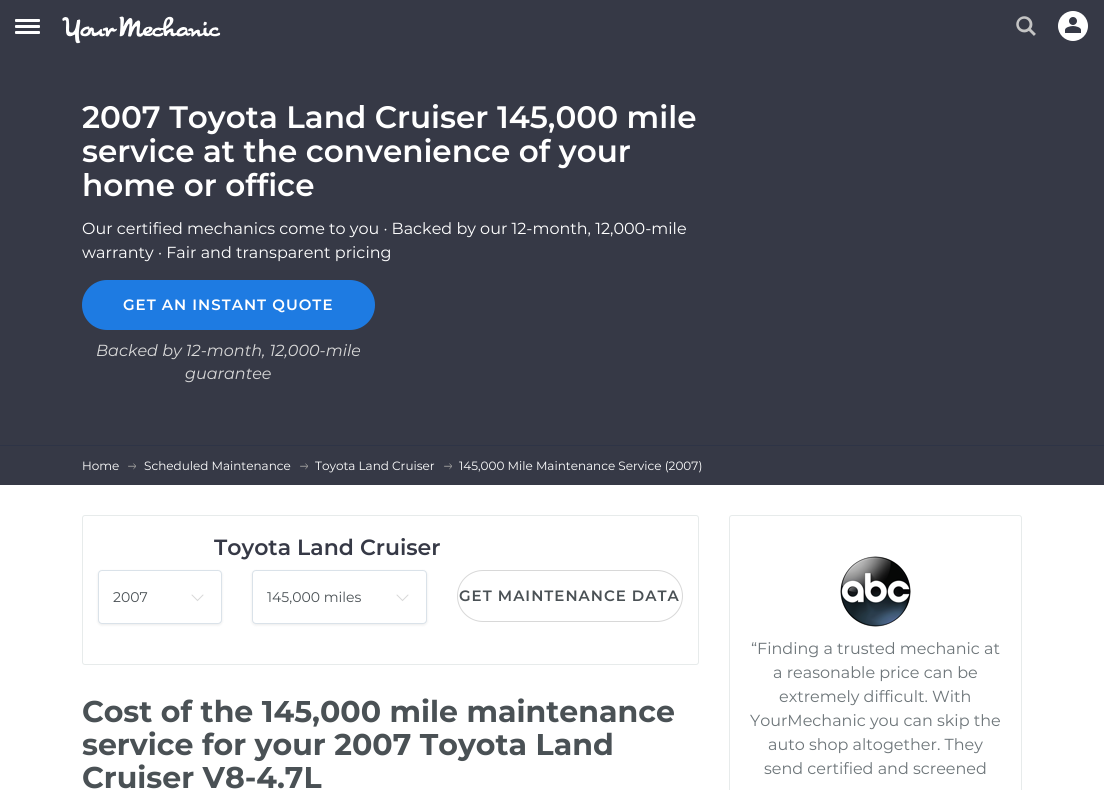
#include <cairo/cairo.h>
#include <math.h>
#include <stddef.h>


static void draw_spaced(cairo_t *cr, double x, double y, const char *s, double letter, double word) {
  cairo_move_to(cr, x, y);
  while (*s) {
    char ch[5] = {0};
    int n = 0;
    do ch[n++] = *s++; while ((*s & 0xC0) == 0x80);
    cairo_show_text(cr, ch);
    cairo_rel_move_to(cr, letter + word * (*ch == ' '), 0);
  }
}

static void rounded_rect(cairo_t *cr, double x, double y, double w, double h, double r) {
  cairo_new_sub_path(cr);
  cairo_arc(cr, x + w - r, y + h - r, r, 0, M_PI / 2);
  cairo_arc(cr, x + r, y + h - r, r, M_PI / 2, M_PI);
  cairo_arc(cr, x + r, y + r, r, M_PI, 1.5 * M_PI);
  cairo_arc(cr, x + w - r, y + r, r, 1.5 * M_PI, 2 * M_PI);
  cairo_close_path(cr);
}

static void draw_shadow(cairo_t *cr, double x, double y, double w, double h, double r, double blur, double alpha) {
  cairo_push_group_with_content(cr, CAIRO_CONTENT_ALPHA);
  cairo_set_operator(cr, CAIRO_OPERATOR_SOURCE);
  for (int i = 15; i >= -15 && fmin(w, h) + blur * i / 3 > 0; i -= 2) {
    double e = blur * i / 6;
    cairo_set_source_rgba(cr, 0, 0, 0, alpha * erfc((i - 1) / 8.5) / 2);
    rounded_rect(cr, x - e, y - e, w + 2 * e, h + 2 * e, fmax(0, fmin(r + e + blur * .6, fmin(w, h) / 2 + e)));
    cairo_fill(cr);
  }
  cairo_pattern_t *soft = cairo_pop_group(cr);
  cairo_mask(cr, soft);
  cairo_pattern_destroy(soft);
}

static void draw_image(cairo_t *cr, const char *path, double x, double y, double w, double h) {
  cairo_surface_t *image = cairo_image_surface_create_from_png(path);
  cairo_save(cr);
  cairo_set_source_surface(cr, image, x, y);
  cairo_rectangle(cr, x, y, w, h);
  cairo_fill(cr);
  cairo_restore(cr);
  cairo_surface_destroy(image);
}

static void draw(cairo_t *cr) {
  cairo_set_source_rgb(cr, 1, 1, 1);
  cairo_paint(cr);
  cairo_set_source_rgb(cr, 54 / 255.0, 57 / 255.0, 70 / 255.0);
  cairo_rectangle(cr, 0, 0, 1104, 445);
  cairo_fill(cr);
  cairo_set_source_rgb(cr, 1, 1, 1);
  rounded_rect(cr, 15, 19, 25, 3, 1);
  cairo_fill(cr);
  rounded_rect(cr, 15, 25, 25, 3, 1);
  cairo_fill(cr);
  rounded_rect(cr, 15, 31, 25, 3, 1);
  cairo_fill(cr);
  draw_image(cr, "images/1.png", 62, 16, 159, 28);
  draw_image(cr, "images/2.png", 1016, 16, 20, 20);
  draw_image(cr, "images/3.png", 1058, 11, 30, 30);
  cairo_set_source_rgb(cr, 30 / 255.0, 123 / 255.0, 226 / 255.0);
  rounded_rect(cr, 82, 280, 293, 50, 25);
  cairo_fill(cr);
  cairo_set_source_rgb(cr, 54 / 255.0, 57 / 255.0, 70 / 255.0);
  cairo_rectangle(cr, 0, 446, 1104, 39);
  cairo_fill(cr);
  cairo_set_source_rgb(cr, 46 / 255.0, 52 / 255.0, 70 / 255.0);
  cairo_rectangle(cr, 0, 445, 1104, 1);
  cairo_fill(cr);
  draw_image(cr, "images/4.png", 128, 463, 8, 7);
  draw_image(cr, "images/4.png", 300, 463, 8, 7);
  draw_image(cr, "images/4.png", 444, 463, 8, 7);
  rounded_rect(cr, 82.5, 515.5, 616, 149, 2.5);
  cairo_set_source_rgb(cr, 231 / 255.0, 235 / 255.0, 235 / 255.0);
  cairo_set_line_width(cr, 1);
  cairo_stroke(cr);
  cairo_set_source_rgb(cr, 0, 0, 0);
  draw_shadow(cr, 98, 571, 124, 54, 4, 1.5, 0.08);
  cairo_set_source_rgb(cr, 1, 1, 1);
  rounded_rect(cr, 98.5, 570.5, 123, 53, 3.5);
  cairo_fill_preserve(cr);
  cairo_set_source_rgb(cr, 218 / 255.0, 226 / 255.0, 233 / 255.0);
  cairo_stroke(cr);
  cairo_new_path(cr);
  cairo_move_to(cr, 192, 595);
  cairo_line_to(cr, 197.5, 600.5);
  cairo_line_to(cr, 203, 595);
  cairo_set_source_rgb(cr, 216 / 255.0, 216 / 255.0, 216 / 255.0);
  cairo_set_line_cap(cr, CAIRO_LINE_CAP_ROUND);
  cairo_stroke(cr);
  cairo_set_source_rgb(cr, 0, 0, 0);
  draw_shadow(cr, 252, 571, 175, 54, 4, 1.5, 0.08);
  cairo_set_source_rgb(cr, 1, 1, 1);
  rounded_rect(cr, 252.5, 570.5, 174, 53, 3.5);
  cairo_fill_preserve(cr);
  cairo_set_source_rgb(cr, 218 / 255.0, 226 / 255.0, 233 / 255.0);
  cairo_set_line_cap(cr, CAIRO_LINE_CAP_BUTT);
  cairo_stroke(cr);
  cairo_new_path(cr);
  cairo_move_to(cr, 397, 595);
  cairo_line_to(cr, 402.5, 600.5);
  cairo_line_to(cr, 408, 595);
  cairo_set_source_rgb(cr, 216 / 255.0, 216 / 255.0, 216 / 255.0);
  cairo_set_line_cap(cr, CAIRO_LINE_CAP_ROUND);
  cairo_stroke(cr);
  rounded_rect(cr, 457.5, 570.5, 225, 51, 25.5);
  cairo_set_line_cap(cr, CAIRO_LINE_CAP_BUTT);
  cairo_stroke(cr);
  rounded_rect(cr, 729.5, 515.5, 292, 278, 2.5);
  cairo_set_source_rgb(cr, 231 / 255.0, 235 / 255.0, 235 / 255.0);
  cairo_stroke(cr);
  draw_image(cr, "images/5.png", 840, 556, 71, 71);
  cairo_select_font_face(cr, "Montserrat SemiBold", CAIRO_FONT_SLANT_NORMAL, CAIRO_FONT_WEIGHT_NORMAL);
  cairo_set_font_size(cr, 31);
  cairo_set_source_rgb(cr, 1, 1, 1);
  cairo_move_to(cr, 82, 128);
  cairo_show_text(cr, "2007 Toyota Land Cruiser 145,000 mile");
  cairo_move_to(cr, 82, 162);
  cairo_show_text(cr, "service at the convenience of your");
  cairo_move_to(cr, 82, 196);
  cairo_show_text(cr, "home or office");
  cairo_select_font_face(cr, "Montserrat", CAIRO_FONT_SLANT_NORMAL, CAIRO_FONT_WEIGHT_NORMAL);
  cairo_set_font_size(cr, 16);
  cairo_move_to(cr, 82, 234);
  cairo_show_text(cr, "Our certified mechanics come to you · Backed by our 12-month, 12,000-mile");
  cairo_move_to(cr, 82, 258);
  cairo_show_text(cr, "warranty · Fair and transparent pricing");
  cairo_select_font_face(cr, "Montserrat SemiBold", CAIRO_FONT_SLANT_NORMAL, CAIRO_FONT_WEIGHT_NORMAL);
  cairo_set_font_size(cr, 15);
  draw_spaced(cr, 123, 310, "GET AN INSTANT QUOTE", 1, 0);
  cairo_select_font_face(cr, "Montserrat", CAIRO_FONT_SLANT_ITALIC, CAIRO_FONT_WEIGHT_NORMAL);
  cairo_set_font_size(cr, 16);
  cairo_set_source_rgb(cr, 216 / 255.0, 216 / 255.0, 216 / 255.0);
  cairo_move_to(cr, 96, 356);
  cairo_show_text(cr, "Backed by 12-month, 12,000-mile");
  cairo_move_to(cr, 185, 379);
  cairo_show_text(cr, "guarantee");
  cairo_select_font_face(cr, "Montserrat", CAIRO_FONT_SLANT_NORMAL, CAIRO_FONT_WEIGHT_NORMAL);
  cairo_set_font_size(cr, 12);
  cairo_set_source_rgb(cr, 1, 1, 1);
  cairo_move_to(cr, 82, 470);
  cairo_show_text(cr, "Home");
  cairo_move_to(cr, 144, 470);
  cairo_show_text(cr, "Scheduled Maintenance");
  cairo_move_to(cr, 315, 470);
  cairo_show_text(cr, "Toyota Land Cruiser");
  cairo_move_to(cr, 459, 470);
  cairo_show_text(cr, "145,000 Mile Maintenance Service (2007)");
  cairo_select_font_face(cr, "Montserrat SemiBold", CAIRO_FONT_SLANT_NORMAL, CAIRO_FONT_WEIGHT_NORMAL);
  cairo_set_font_size(cr, 22);
  cairo_set_source_rgb(cr, 54 / 255.0, 57 / 255.0, 70 / 255.0);
  cairo_move_to(cr, 214, 555);
  cairo_show_text(cr, "Toyota Land Cruiser");
  cairo_select_font_face(cr, "Montserrat", CAIRO_FONT_SLANT_NORMAL, CAIRO_FONT_WEIGHT_NORMAL);
  cairo_set_font_size(cr, 14);
  cairo_set_source_rgb(cr, 74 / 255.0, 81 / 255.0, 85 / 255.0);
  cairo_move_to(cr, 113, 602);
  cairo_show_text(cr, "2007");
  cairo_move_to(cr, 267, 602);
  cairo_show_text(cr, "145,000 miles");
  cairo_select_font_face(cr, "Montserrat SemiBold", CAIRO_FONT_SLANT_NORMAL, CAIRO_FONT_WEIGHT_NORMAL);
  cairo_set_font_size(cr, 15);
  draw_spaced(cr, 459, 601, "GET MAINTENANCE DATA", 1, 0);
  cairo_select_font_face(cr, "Montserrat", CAIRO_FONT_SLANT_NORMAL, CAIRO_FONT_WEIGHT_BOLD);
  cairo_set_font_size(cr, 30);
  cairo_move_to(cr, 82, 722);
  cairo_show_text(cr, "Cost of the 145,000 mile maintenance");
  cairo_move_to(cr, 82, 755);
  cairo_show_text(cr, "service for your 2007 Toyota Land");
  cairo_move_to(cr, 82, 788);
  cairo_show_text(cr, "Cruiser V8-4.7L");
  cairo_select_font_face(cr, "Montserrat", CAIRO_FONT_SLANT_NORMAL, CAIRO_FONT_WEIGHT_NORMAL);
  cairo_set_font_size(cr, 16);
  cairo_set_source_rgb(cr, 109 / 255.0, 117 / 255.0, 121 / 255.0);
  cairo_move_to(cr, 751, 654);
  cairo_show_text(cr, "“Finding a trusted mechanic at");
  cairo_move_to(cr, 773, 678);
  cairo_show_text(cr, "a reasonable price can be");
  cairo_move_to(cr, 779, 702);
  cairo_show_text(cr, "extremely difficult. With");
  cairo_move_to(cr, 750, 726);
  cairo_show_text(cr, "YourMechanic you can skip the");
  cairo_move_to(cr, 768, 750);
  cairo_show_text(cr, "auto shop altogether. They");
  cairo_move_to(cr, 764, 774);
  cairo_show_text(cr, "send certified and screened");
}

int main(void) {
  cairo_surface_t *surface = cairo_image_surface_create(CAIRO_FORMAT_RGB24, 1104, 790);
  cairo_t *cr = cairo_create(surface);
  cairo_font_options_t *options = cairo_font_options_create();
  cairo_font_options_set_hint_metrics(options, CAIRO_HINT_METRICS_OFF);
  cairo_font_options_set_hint_style(options, CAIRO_HINT_STYLE_NONE);
  cairo_set_font_options(cr, options);
  cairo_set_miter_limit(cr, 4);
  draw(cr);
  cairo_surface_write_to_png(surface, "out.png");
  cairo_font_options_destroy(options);
  cairo_destroy(cr);
  cairo_surface_destroy(surface);
  return 0;
}
